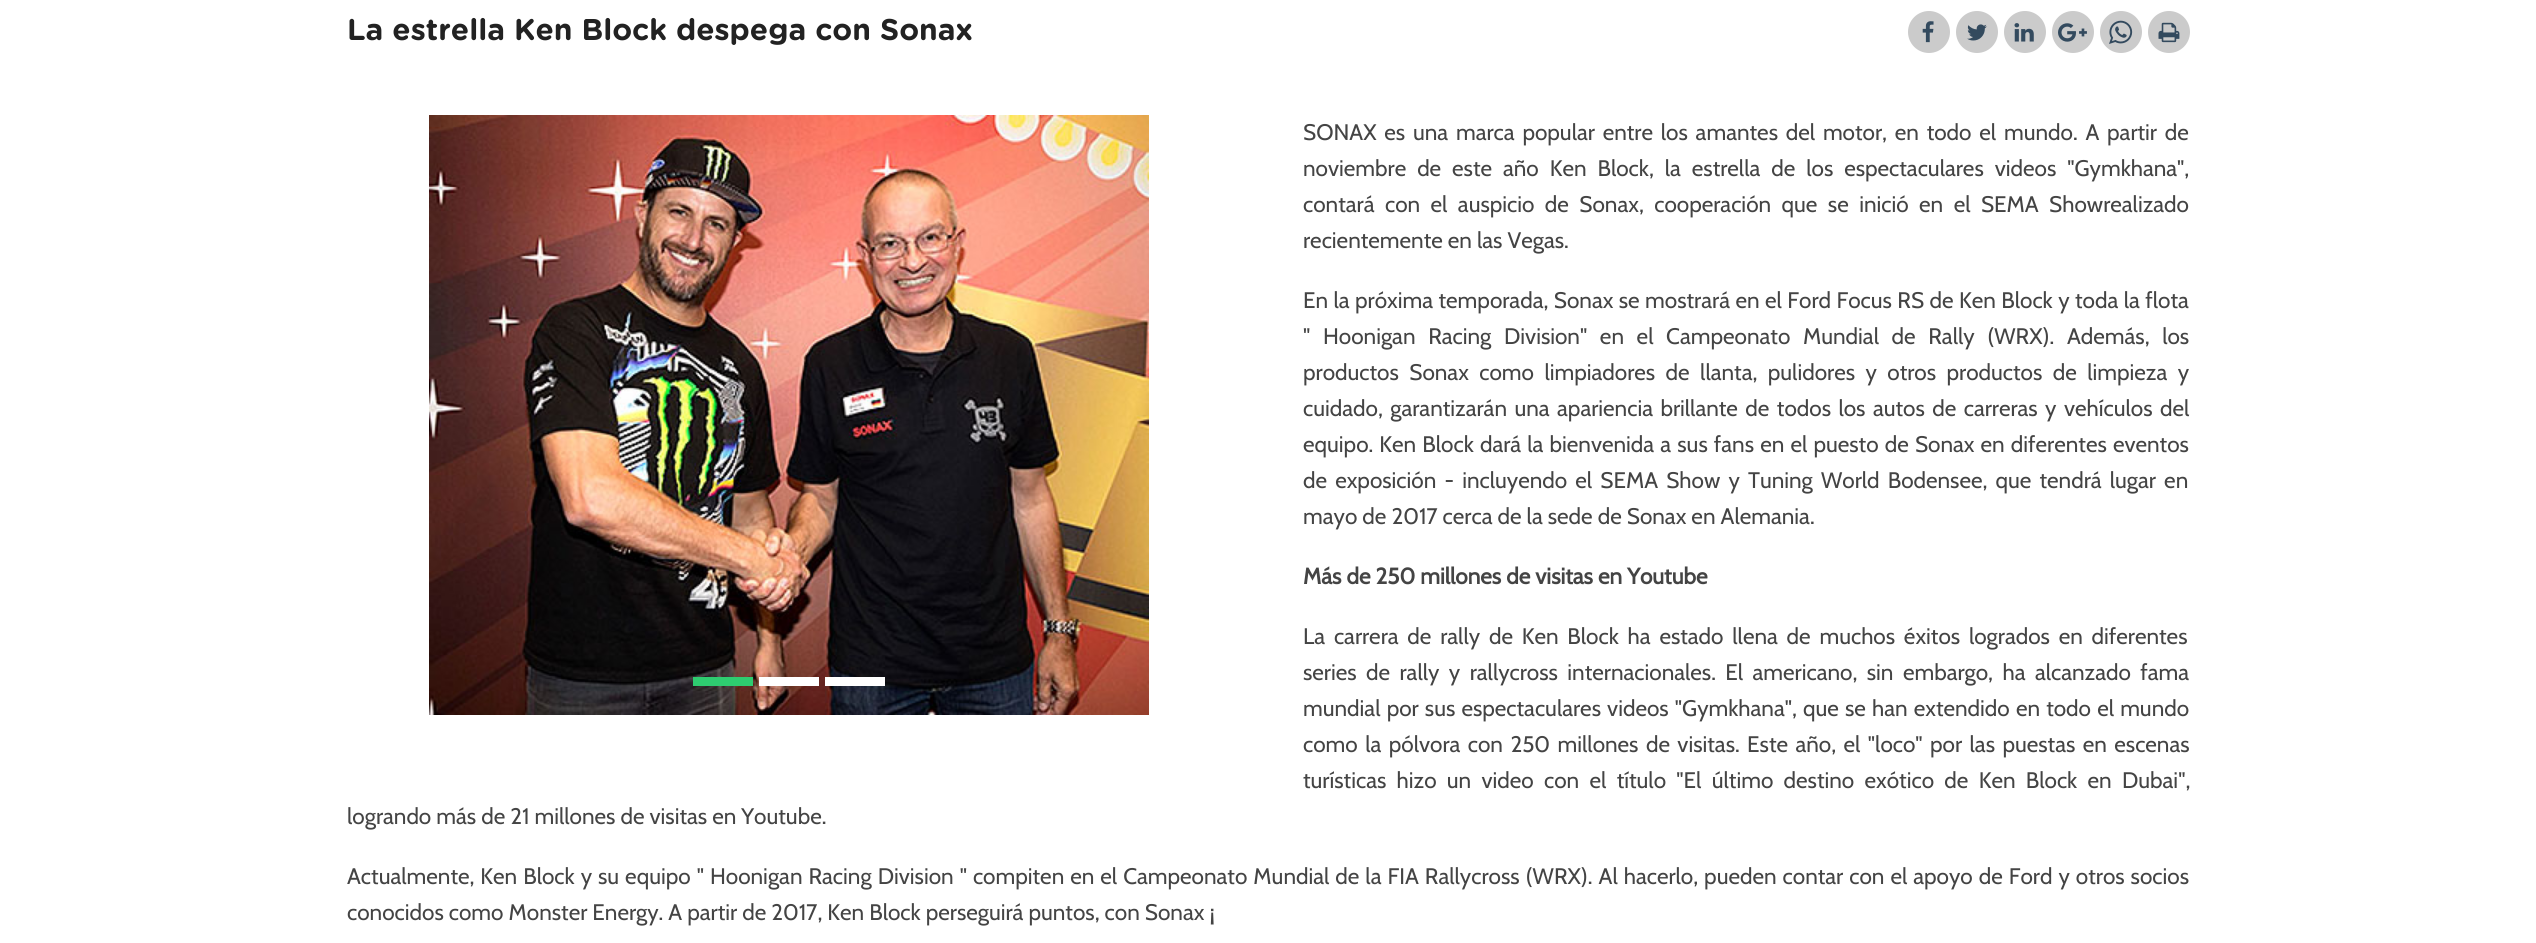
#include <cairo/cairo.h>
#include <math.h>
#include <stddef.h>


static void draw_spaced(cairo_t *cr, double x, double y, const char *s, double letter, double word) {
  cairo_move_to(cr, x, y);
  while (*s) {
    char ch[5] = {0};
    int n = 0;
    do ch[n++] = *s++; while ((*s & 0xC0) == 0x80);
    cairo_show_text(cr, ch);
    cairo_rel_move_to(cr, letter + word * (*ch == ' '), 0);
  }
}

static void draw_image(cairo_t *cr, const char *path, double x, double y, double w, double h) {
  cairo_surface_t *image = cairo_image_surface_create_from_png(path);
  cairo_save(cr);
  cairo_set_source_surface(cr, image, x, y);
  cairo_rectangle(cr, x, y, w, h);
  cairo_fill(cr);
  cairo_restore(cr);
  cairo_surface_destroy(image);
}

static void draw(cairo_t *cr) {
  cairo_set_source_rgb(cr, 1, 1, 1);
  cairo_paint(cr);
  cairo_set_source_rgb(cr, 203 / 255.0, 203 / 255.0, 203 / 255.0);
  cairo_arc(cr, 1929, 32, 21, 0, 2 * M_PI);
  cairo_fill(cr);
  draw_image(cr, "images/1.png", 1922, 21, 12, 22);
  cairo_arc(cr, 1977, 32, 21, 0, 2 * M_PI);
  cairo_fill(cr);
  draw_image(cr, "images/2.png", 1967, 24, 20, 17);
  cairo_arc(cr, 2025, 32, 21, 0, 2 * M_PI);
  cairo_fill(cr);
  draw_image(cr, "images/3.png", 2014, 23, 20, 19);
  cairo_arc(cr, 2073, 32, 21, 0, 2 * M_PI);
  cairo_fill(cr);
  draw_image(cr, "images/4.png", 2058, 23, 29, 19);
  cairo_arc(cr, 2121, 32, 21, 0, 2 * M_PI);
  cairo_fill(cr);
  draw_image(cr, "images/5.png", 2109, 20, 24, 24);
  cairo_arc(cr, 2169, 32, 21, 0, 2 * M_PI);
  cairo_fill(cr);
  draw_image(cr, "images/6.png", 2158, 22, 22, 21);
  draw_image(cr, "images/7.png", 429, 115, 720, 600);
  cairo_set_source_rgb(cr, 46 / 255.0, 204 / 255.0, 112 / 255.0);
  cairo_rectangle(cr, 693, 677, 60, 9);
  cairo_fill(cr);
  cairo_set_source_rgb(cr, 1, 1, 1);
  cairo_rectangle(cr, 759, 677, 60, 9);
  cairo_fill(cr);
  cairo_rectangle(cr, 825, 677, 60, 9);
  cairo_fill(cr);
  cairo_select_font_face(cr, "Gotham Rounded", CAIRO_FONT_SLANT_NORMAL, CAIRO_FONT_WEIGHT_BOLD);
  cairo_set_font_size(cr, 30);
  cairo_set_source_rgb(cr, 34 / 255.0, 34 / 255.0, 34 / 255.0);
  cairo_move_to(cr, 347, 40);
  cairo_show_text(cr, "La estrella Ken Block despega con Sonax");
  cairo_select_font_face(cr, "Cabin", CAIRO_FONT_SLANT_NORMAL, CAIRO_FONT_WEIGHT_NORMAL);
  cairo_set_font_size(cr, 22.5);
  cairo_set_source_rgb(cr, 68 / 255.0, 68 / 255.0, 68 / 255.0);
  draw_spaced(cr, 1303, 140, "SONAX es una marca popular entre los amantes del motor, en todo el mundo. A partir de", 0, 2.75);
  draw_spaced(cr, 1303, 176, "noviembre de este año Ken Block, la estrella de los espectaculares videos \"Gymkhana\",", 0, 5.9);
  draw_spaced(cr, 1303, 212, "contará con el auspicio de Sonax, cooperación que se inició en el SEMA Showrealizado", 0, 5.4);
  cairo_move_to(cr, 1303, 248);
  cairo_show_text(cr, "recientemente en las Vegas.");
  draw_spaced(cr, 1303, 308, "En la próxima temporada, Sonax se mostrará en el Ford Focus RS de Ken Block y toda la flota", 0, 0.4);
  draw_spaced(cr, 1303, 344, "\" Hoonigan Racing Division\" en el Campeonato Mundial de Rally (WRX). Además, los", 0, 7.6);
  draw_spaced(cr, 1303, 380, "productos Sonax como limpiadores de llanta, pulidores y otros productos de limpieza y", 0, 5.4);
  draw_spaced(cr, 1303, 416, "cuidado, garantizarán una apariencia brillante de todos los autos de carreras y vehículos del", 0, 2.4);
  draw_spaced(cr, 1303, 452, "equipo. Ken Block dará la bienvenida a sus fans en el puesto de Sonax en diferentes eventos", 0, 1.1);
  draw_spaced(cr, 1303, 488, "de exposición - incluyendo el SEMA Show y Tuning World Bodensee, que tendrá lugar en", 0, 3.1);
  cairo_move_to(cr, 1303, 524);
  cairo_show_text(cr, "mayo de 2017 cerca de la sede de Sonax en Alemania.");
  cairo_select_font_face(cr, "Cabin", CAIRO_FONT_SLANT_NORMAL, CAIRO_FONT_WEIGHT_BOLD);
  cairo_move_to(cr, 1303, 584);
  cairo_show_text(cr, "Más de 250 millones de visitas en Youtube");
  cairo_select_font_face(cr, "Cabin", CAIRO_FONT_SLANT_NORMAL, CAIRO_FONT_WEIGHT_NORMAL);
  draw_spaced(cr, 1303, 644, "La carrera de rally de Ken Block ha estado llena de muchos éxitos logrados en diferentes", 0, 3.75);
  draw_spaced(cr, 1303, 680, "series de rally y rallycross internacionales. El americano, sin embargo, ha alcanzado fama", 0, 4.4);
  draw_spaced(cr, 1303, 716, "mundial por sus espectaculares videos \"Gymkhana\", que se han extendido en todo el mundo", 0, 1.1);
  draw_spaced(cr, 1303, 752, "como la pólvora con 250 millones de visitas. Este año, el \"loco\" por las puestas en escenas", 0, 2.4);
  draw_spaced(cr, 1303, 788, "turísticas hizo un video con el título \"El último destino exótico de Ken Block en Dubai\",", 0, 5.25);
  cairo_move_to(cr, 347, 824);
  cairo_show_text(cr, "logrando más de 21 millones de visitas en Youtube.");
  draw_spaced(cr, 347, 884, "Actualmente, Ken Block y su equipo \" Hoonigan Racing Division \" compiten en el Campeonato Mundial de la FIA Rallycross (WRX). Al hacerlo, pueden contar con el apoyo de Ford y otros socios", 0, 0.95);
  cairo_move_to(cr, 347, 920);
  cairo_show_text(cr, "conocidos como Monster Energy. A partir de 2017, Ken Block perseguirá puntos, con Sonax ¡");
}

int main(void) {
  cairo_surface_t *surface = cairo_image_surface_create(CAIRO_FORMAT_RGB24, 2536, 943);
  cairo_t *cr = cairo_create(surface);
  cairo_font_options_t *options = cairo_font_options_create();
  cairo_font_options_set_hint_metrics(options, CAIRO_HINT_METRICS_OFF);
  cairo_font_options_set_hint_style(options, CAIRO_HINT_STYLE_NONE);
  cairo_set_font_options(cr, options);
  cairo_set_miter_limit(cr, 4);
  draw(cr);
  cairo_surface_write_to_png(surface, "out.png");
  cairo_font_options_destroy(options);
  cairo_destroy(cr);
  cairo_surface_destroy(surface);
  return 0;
}
